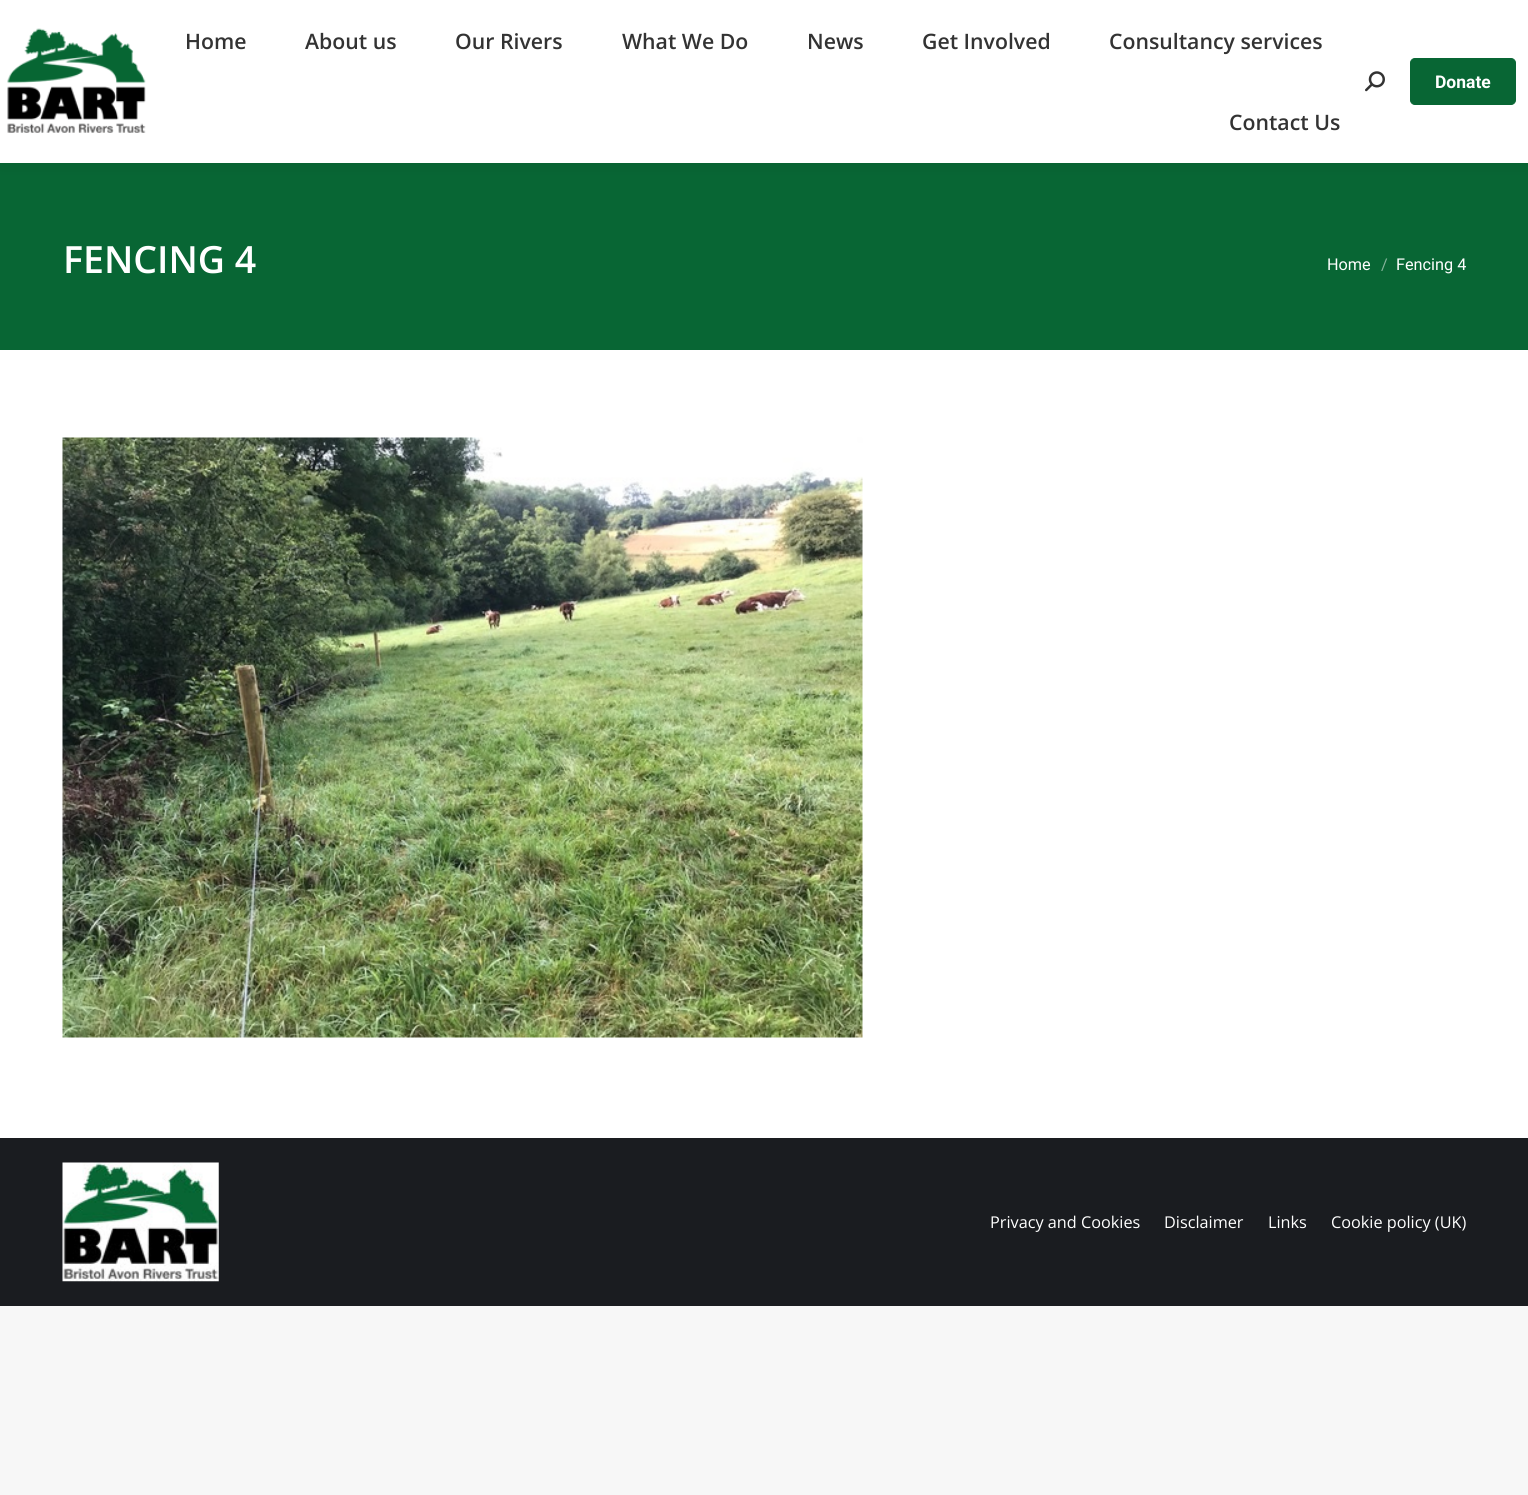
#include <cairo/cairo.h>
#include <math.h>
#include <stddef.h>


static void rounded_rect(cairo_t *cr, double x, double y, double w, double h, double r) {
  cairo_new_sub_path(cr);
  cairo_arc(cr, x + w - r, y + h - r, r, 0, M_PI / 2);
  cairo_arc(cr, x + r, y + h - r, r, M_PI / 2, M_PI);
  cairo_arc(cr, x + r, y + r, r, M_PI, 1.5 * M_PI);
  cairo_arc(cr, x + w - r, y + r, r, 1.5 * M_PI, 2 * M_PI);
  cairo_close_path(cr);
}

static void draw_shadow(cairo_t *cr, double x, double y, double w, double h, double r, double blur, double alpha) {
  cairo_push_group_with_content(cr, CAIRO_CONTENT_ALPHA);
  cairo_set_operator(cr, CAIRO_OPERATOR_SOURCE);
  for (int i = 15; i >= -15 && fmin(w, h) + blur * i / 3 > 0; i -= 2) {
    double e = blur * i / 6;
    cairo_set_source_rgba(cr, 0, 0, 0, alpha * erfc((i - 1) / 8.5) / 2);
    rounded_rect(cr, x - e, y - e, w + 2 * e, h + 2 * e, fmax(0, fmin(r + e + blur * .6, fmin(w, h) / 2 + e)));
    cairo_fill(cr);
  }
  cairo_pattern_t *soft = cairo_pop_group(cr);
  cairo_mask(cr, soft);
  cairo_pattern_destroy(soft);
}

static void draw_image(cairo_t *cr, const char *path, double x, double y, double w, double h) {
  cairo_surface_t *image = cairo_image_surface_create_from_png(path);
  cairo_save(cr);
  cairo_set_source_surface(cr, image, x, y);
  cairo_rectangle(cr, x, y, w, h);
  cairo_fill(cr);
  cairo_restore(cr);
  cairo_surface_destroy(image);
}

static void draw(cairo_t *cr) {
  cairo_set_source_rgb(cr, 247 / 255.0, 247 / 255.0, 247 / 255.0);
  cairo_paint(cr);
  cairo_set_source_rgb(cr, 1, 1, 1);
  cairo_rectangle(cr, 0, 350, 1528, 788);
  cairo_fill(cr);
  cairo_set_source_rgb(cr, 8 / 255.0, 102 / 255.0, 52 / 255.0);
  cairo_rectangle(cr, 0, 163, 1528, 187);
  cairo_fill(cr);
  cairo_set_source_rgb(cr, 0, 0, 0);
  draw_shadow(cr, -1, -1, 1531, 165, 0, 9.5, 0.07);
  cairo_set_source_rgb(cr, 1, 1, 1);
  cairo_rectangle(cr, 0, 0, 1528, 163);
  cairo_fill(cr);
  draw_image(cr, "images/1.png", 7, 28, 139, 105);
  draw_image(cr, "images/2.png", 1365, 71, 20, 21);
  cairo_set_source_rgb(cr, 8 / 255.0, 102 / 255.0, 52 / 255.0);
  rounded_rect(cr, 1410.5, 58.5, 105, 46, 4.5);
  cairo_fill_preserve(cr);
  cairo_set_line_width(cr, 1);
  cairo_stroke(cr);
  draw_image(cr, "images/3.png", 62, 437, 801, 601);
  cairo_set_source_rgb(cr, 26 / 255.0, 28 / 255.0, 32 / 255.0);
  cairo_rectangle(cr, 0, 1138, 1528, 168);
  cairo_fill(cr);
  draw_image(cr, "images/4.png", 62, 1162, 157, 120);
  cairo_select_font_face(cr, "Open Sans SemiBold", CAIRO_FONT_SLANT_NORMAL, CAIRO_FONT_WEIGHT_NORMAL);
  cairo_set_font_size(cr, 21.25);
  cairo_set_source_rgb(cr, 51 / 255.0, 51 / 255.0, 51 / 255.0);
  cairo_move_to(cr, 185, 49);
  cairo_show_text(cr, "Home");
  cairo_move_to(cr, 305, 49);
  cairo_show_text(cr, "About us");
  cairo_move_to(cr, 455, 49);
  cairo_show_text(cr, "Our Rivers");
  cairo_move_to(cr, 622, 49);
  cairo_show_text(cr, "What We Do");
  cairo_move_to(cr, 807, 49);
  cairo_show_text(cr, "News");
  cairo_move_to(cr, 922, 49);
  cairo_show_text(cr, "Get Involved");
  cairo_move_to(cr, 1109, 49);
  cairo_show_text(cr, "Consultancy services");
  cairo_move_to(cr, 1229, 130);
  cairo_show_text(cr, "Contact Us");
  cairo_select_font_face(cr, "Roboto", CAIRO_FONT_SLANT_NORMAL, CAIRO_FONT_WEIGHT_BOLD);
  cairo_set_font_size(cr, 17.5);
  cairo_set_source_rgb(cr, 1, 1, 1);
  cairo_move_to(cr, 1435, 88);
  cairo_show_text(cr, "Donate");
  cairo_select_font_face(cr, "Open Sans SemiBold", CAIRO_FONT_SLANT_NORMAL, CAIRO_FONT_WEIGHT_NORMAL);
  cairo_set_font_size(cr, 37.5);
  cairo_move_to(cr, 63, 273);
  cairo_show_text(cr, "FENCING 4");
  cairo_select_font_face(cr, "Roboto", CAIRO_FONT_SLANT_NORMAL, CAIRO_FONT_WEIGHT_NORMAL);
  cairo_set_font_size(cr, 16.25);
  cairo_move_to(cr, 1327, 270);
  cairo_show_text(cr, "Home");
  cairo_set_source_rgb(cr, 132 / 255.0, 179 / 255.0, 154 / 255.0);
  cairo_move_to(cr, 1381, 270);
  cairo_show_text(cr, "/");
  cairo_set_source_rgb(cr, 1, 1, 1);
  cairo_move_to(cr, 1396, 270);
  cairo_show_text(cr, "Fencing 4");
  cairo_select_font_face(cr, "Open Sans", CAIRO_FONT_SLANT_NORMAL, CAIRO_FONT_WEIGHT_NORMAL);
  cairo_move_to(cr, 990, 1228);
  cairo_show_text(cr, "Privacy and Cookies");
  cairo_move_to(cr, 1164, 1228);
  cairo_show_text(cr, "Disclaimer");
  cairo_move_to(cr, 1268, 1228);
  cairo_show_text(cr, "Links");
  cairo_move_to(cr, 1331, 1228);
  cairo_show_text(cr, "Cookie policy (UK)");
}

int main(void) {
  cairo_surface_t *surface = cairo_image_surface_create(CAIRO_FORMAT_RGB24, 1528, 1495);
  cairo_t *cr = cairo_create(surface);
  cairo_font_options_t *options = cairo_font_options_create();
  cairo_font_options_set_hint_metrics(options, CAIRO_HINT_METRICS_OFF);
  cairo_font_options_set_hint_style(options, CAIRO_HINT_STYLE_NONE);
  cairo_set_font_options(cr, options);
  cairo_set_miter_limit(cr, 4);
  draw(cr);
  cairo_surface_write_to_png(surface, "out.png");
  cairo_font_options_destroy(options);
  cairo_destroy(cr);
  cairo_surface_destroy(surface);
  return 0;
}
